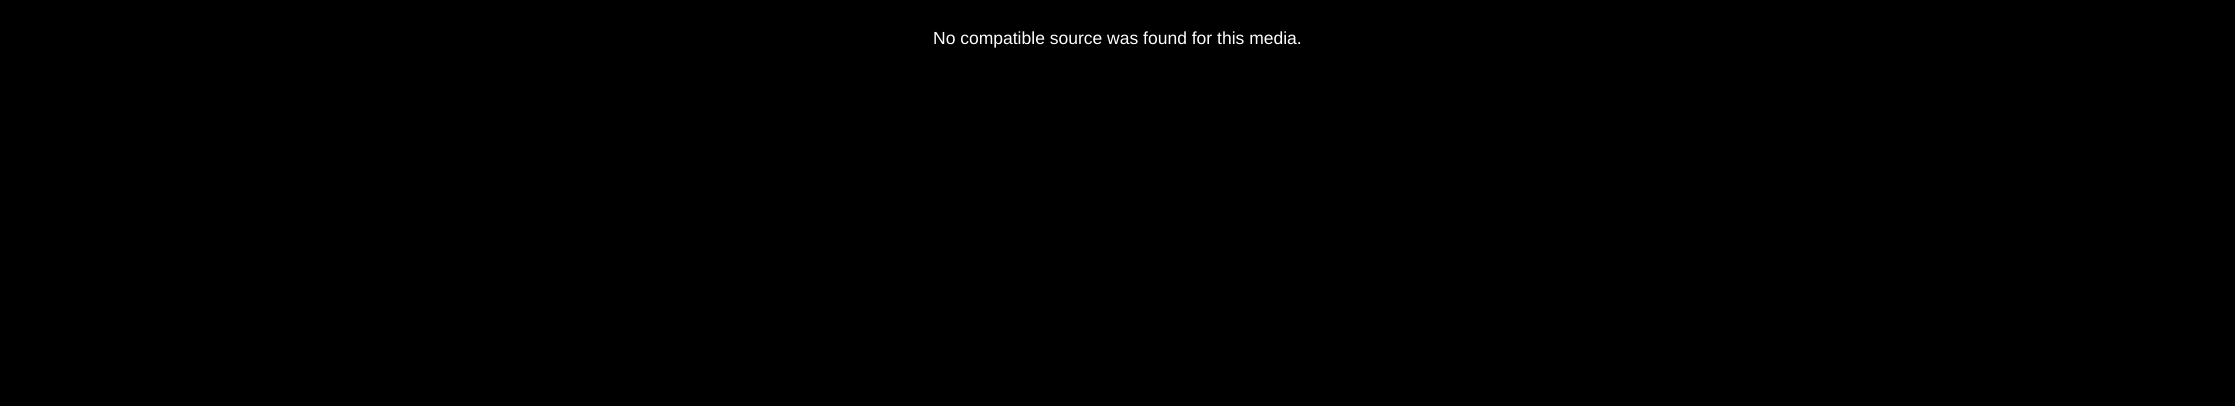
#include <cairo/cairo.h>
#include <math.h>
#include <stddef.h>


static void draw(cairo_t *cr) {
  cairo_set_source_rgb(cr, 0, 0, 0);
  cairo_paint(cr);
  cairo_select_font_face(cr, "Liberation Sans", CAIRO_FONT_SLANT_NORMAL, CAIRO_FONT_WEIGHT_NORMAL);
  cairo_set_font_size(cr, 17.5);
  cairo_set_source_rgb(cr, 1, 1, 1);
  cairo_move_to(cr, 933, 44);
  cairo_show_text(cr, "No compatible source was found for this media.");
}

int main(void) {
  cairo_surface_t *surface = cairo_image_surface_create(CAIRO_FORMAT_RGB24, 2235, 406);
  cairo_t *cr = cairo_create(surface);
  cairo_font_options_t *options = cairo_font_options_create();
  cairo_font_options_set_hint_metrics(options, CAIRO_HINT_METRICS_OFF);
  cairo_font_options_set_hint_style(options, CAIRO_HINT_STYLE_NONE);
  cairo_set_font_options(cr, options);
  cairo_set_miter_limit(cr, 4);
  draw(cr);
  cairo_surface_write_to_png(surface, "out.png");
  cairo_font_options_destroy(options);
  cairo_destroy(cr);
  cairo_surface_destroy(surface);
  return 0;
}
